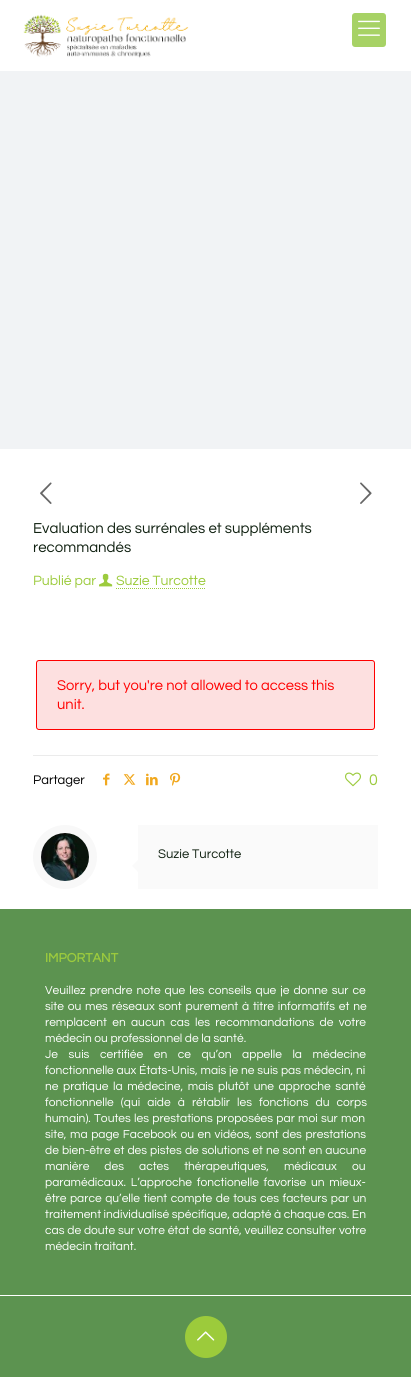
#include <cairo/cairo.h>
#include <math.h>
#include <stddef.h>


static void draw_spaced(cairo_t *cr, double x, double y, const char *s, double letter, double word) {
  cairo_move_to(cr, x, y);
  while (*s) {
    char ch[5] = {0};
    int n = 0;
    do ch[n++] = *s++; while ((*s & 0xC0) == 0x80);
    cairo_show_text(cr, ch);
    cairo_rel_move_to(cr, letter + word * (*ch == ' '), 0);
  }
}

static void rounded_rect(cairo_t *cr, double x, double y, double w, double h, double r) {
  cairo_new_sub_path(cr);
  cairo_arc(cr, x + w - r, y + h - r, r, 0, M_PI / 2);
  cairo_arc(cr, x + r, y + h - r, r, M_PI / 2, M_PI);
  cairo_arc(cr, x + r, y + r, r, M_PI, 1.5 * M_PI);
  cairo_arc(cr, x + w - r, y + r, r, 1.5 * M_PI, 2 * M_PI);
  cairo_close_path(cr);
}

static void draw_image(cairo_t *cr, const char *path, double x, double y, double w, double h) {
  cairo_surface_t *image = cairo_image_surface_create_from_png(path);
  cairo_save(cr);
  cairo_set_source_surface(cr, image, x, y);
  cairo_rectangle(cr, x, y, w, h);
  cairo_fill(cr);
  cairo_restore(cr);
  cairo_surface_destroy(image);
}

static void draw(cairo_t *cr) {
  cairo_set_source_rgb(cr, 1, 1, 1);
  cairo_paint(cr);
  cairo_set_source_rgb(cr, 241 / 255.0, 243 / 255.0, 245 / 255.0);
  cairo_rectangle(cr, 0, 71, 411, 378);
  cairo_fill(cr);
  draw_image(cr, "images/1.png", 23, 14, 166, 44);
  cairo_set_source_rgb(cr, 167 / 255.0, 210 / 255.0, 101 / 255.0);
  rounded_rect(cr, 352, 13, 34, 34, 3);
  cairo_fill(cr);
  draw_image(cr, "images/2.png", 358, 20, 22, 16);
  draw_image(cr, "images/3.png", 40, 482, 12, 22);
  draw_image(cr, "images/4.png", 360, 482, 12, 22);
  draw_image(cr, "images/5.png", 99, 573, 14, 14);
  cairo_new_path(cr);
  cairo_move_to(cr, 116, 588.5);
  cairo_line_to(cr, 206, 588.5);
  cairo_set_source_rgb(cr, 156 / 255.0, 203 / 255.0, 61 / 255.0);
  cairo_set_line_width(cr, 1);
  cairo_set_dash(cr, (double[]){1, 1}, 2, 0);
  cairo_stroke(cr);
  cairo_set_source_rgb(cr, 253 / 255.0, 224 / 255.0, 224 / 255.0);
  rounded_rect(cr, 36.5, 660.5, 338, 69, 2.5);
  cairo_fill_preserve(cr);
  cairo_set_source_rgb(cr, 1, 0, 0);
  cairo_set_dash(cr, NULL, 0, 0);
  cairo_stroke(cr);
  cairo_set_source_rgb(cr, 235 / 255.0, 235 / 255.0, 235 / 255.0);
  cairo_rectangle(cr, 33, 755, 345, 1);
  cairo_fill(cr);
  draw_image(cr, "images/6.png", 103, 773, 7, 13);
  draw_image(cr, "images/7.png", 123, 774, 13, 11);
  draw_image(cr, "images/8.png", 146, 773, 12, 13);
  draw_image(cr, "images/9.png", 170, 772, 11, 14);
  draw_image(cr, "images/10.png", 345, 772, 16, 15);
  cairo_arc(cr, 65, 857, 28, 0, 2 * M_PI);
  cairo_set_source_rgb(cr, 248 / 255.0, 248 / 255.0, 248 / 255.0);
  cairo_set_line_width(cr, 8);
  cairo_stroke(cr);
  draw_image(cr, "images/11.png", 41, 833, 48, 48);
  cairo_set_source_rgb(cr, 250 / 255.0, 250 / 255.0, 250 / 255.0);
  cairo_rectangle(cr, 138, 825, 240, 64);
  cairo_fill(cr);
  cairo_new_path(cr);
  cairo_move_to(cr, 138, 860);
  cairo_line_to(cr, 138, 872);
  cairo_line_to(cr, 132, 866);
  cairo_close_path(cr);
  cairo_fill(cr);
  cairo_set_source_rgb(cr, 92 / 255.0, 147 / 255.0, 80 / 255.0);
  cairo_rectangle(cr, 0, 909, 411, 468);
  cairo_fill(cr);
  cairo_set_source_rgb(cr, 1, 1, 1);
  cairo_rectangle(cr, 0, 1295, 411, 1);
  cairo_fill(cr);
  cairo_set_source_rgb(cr, 156 / 255.0, 203 / 255.0, 59 / 255.0);
  cairo_arc(cr, 206, 1337, 21, 0, 2 * M_PI);
  cairo_fill(cr);
  draw_image(cr, "images/12.png", 197, 1331, 18, 10);
  cairo_select_font_face(cr, "Questrial", CAIRO_FONT_SLANT_NORMAL, CAIRO_FONT_WEIGHT_NORMAL);
  cairo_set_font_size(cr, 15);
  cairo_set_source_rgb(cr, 16 / 255.0, 33 / 255.0, 17 / 255.0);
  cairo_move_to(cr, 33, 533);
  cairo_show_text(cr, "Evaluation des surrénales et suppléments");
  cairo_move_to(cr, 33, 552);
  cairo_show_text(cr, "recommandés");
  cairo_set_font_size(cr, 14);
  cairo_set_source_rgb(cr, 156 / 255.0, 203 / 255.0, 61 / 255.0);
  cairo_move_to(cr, 33, 585);
  cairo_show_text(cr, "Publié par");
  cairo_move_to(cr, 116, 585);
  cairo_show_text(cr, "Suzie Turcotte");
  cairo_set_font_size(cr, 14.7);
  cairo_set_source_rgb(cr, 1, 0, 0);
  cairo_move_to(cr, 57, 690);
  cairo_show_text(cr, "Sorry, but you're not allowed to access this");
  cairo_move_to(cr, 57, 709);
  cairo_show_text(cr, "unit.");
  cairo_set_font_size(cr, 13);
  cairo_set_source_rgb(cr, 0, 0, 0);
  cairo_move_to(cr, 33, 784);
  cairo_show_text(cr, "Partager");
  cairo_set_font_size(cr, 16);
  cairo_set_source_rgb(cr, 156 / 255.0, 203 / 255.0, 61 / 255.0);
  cairo_move_to(cr, 369, 785);
  cairo_show_text(cr, "0");
  cairo_set_font_size(cr, 13);
  cairo_set_source_rgb(cr, 16 / 255.0, 33 / 255.0, 17 / 255.0);
  cairo_move_to(cr, 158, 858);
  cairo_show_text(cr, "Suzie Turcotte");
  cairo_select_font_face(cr, "Questrial", CAIRO_FONT_SLANT_NORMAL, CAIRO_FONT_WEIGHT_BOLD);
  cairo_set_source_rgb(cr, 156 / 255.0, 203 / 255.0, 61 / 255.0);
  cairo_move_to(cr, 45, 962);
  cairo_show_text(cr, "IMPORTANT");
  cairo_select_font_face(cr, "Questrial", CAIRO_FONT_SLANT_NORMAL, CAIRO_FONT_WEIGHT_NORMAL);
  cairo_set_font_size(cr, 12);
  cairo_set_source_rgb(cr, 1, 1, 1);
  draw_spaced(cr, 45, 994, "Veuillez prendre note que les conseils que je donne sur ce", 0, 1.5);
  draw_spaced(cr, 45, 1010, "site ou mes réseaux sont purement à titre informatifs et ne", 0, 1.25);
  draw_spaced(cr, 45, 1026, "remplacent en aucun cas les recommandations de votre", 0, 2.75);
  cairo_move_to(cr, 45, 1042);
  cairo_show_text(cr, "médecin ou professionnel de la santé.");
  draw_spaced(cr, 45, 1058, "Je suis certifiée en ce qu’on appelle la médecine", 0, 8);
  draw_spaced(cr, 45, 1074, "fonctionnelle aux États-Unis, mais je ne suis pas médecin, ni", 0, 0.25);
  draw_spaced(cr, 45, 1090, "ne pratique la médecine, mais plutôt une approche santé", 0, 2);
  draw_spaced(cr, 45, 1106, "fonctionnelle (qui aide à rétablir les fonctions du corps", 0, 4.5);
  draw_spaced(cr, 45, 1122, "humain). Toutes les prestations proposées par moi sur mon", 0, 0.75);
  draw_spaced(cr, 45, 1138, "site, ma page Facebook ou en vidéos, sont des prestations", 0, 1);
  draw_spaced(cr, 45, 1154, "de bien-être et des pistes de solutions et ne sont en aucune", 0, 0.5);
  draw_spaced(cr, 45, 1170, "manière des actes thérapeutiques, médicaux ou", 0, 12.5);
  draw_spaced(cr, 45, 1186, "paramédicaux. L’approche fonctionelle favorise un mieux-", 0, 2.25);
  draw_spaced(cr, 45, 1202, "être parce qu’elle tient compte de tous ces facteurs par un", 0, 1);
  cairo_move_to(cr, 45, 1218);
  cairo_show_text(cr, "traitement individualisé spécifique, adapté à chaque cas. En");
  draw_spaced(cr, 45, 1234, "cas de doute sur votre état de santé, veuillez consulter votre", 0, 0.25);
  cairo_move_to(cr, 45, 1250);
  cairo_show_text(cr, "médecin traitant.");
}

int main(void) {
  cairo_surface_t *surface = cairo_image_surface_create(CAIRO_FORMAT_RGB24, 411, 1377);
  cairo_t *cr = cairo_create(surface);
  cairo_font_options_t *options = cairo_font_options_create();
  cairo_font_options_set_hint_metrics(options, CAIRO_HINT_METRICS_OFF);
  cairo_font_options_set_hint_style(options, CAIRO_HINT_STYLE_NONE);
  cairo_set_font_options(cr, options);
  cairo_set_miter_limit(cr, 4);
  draw(cr);
  cairo_surface_write_to_png(surface, "out.png");
  cairo_font_options_destroy(options);
  cairo_destroy(cr);
  cairo_surface_destroy(surface);
  return 0;
}
